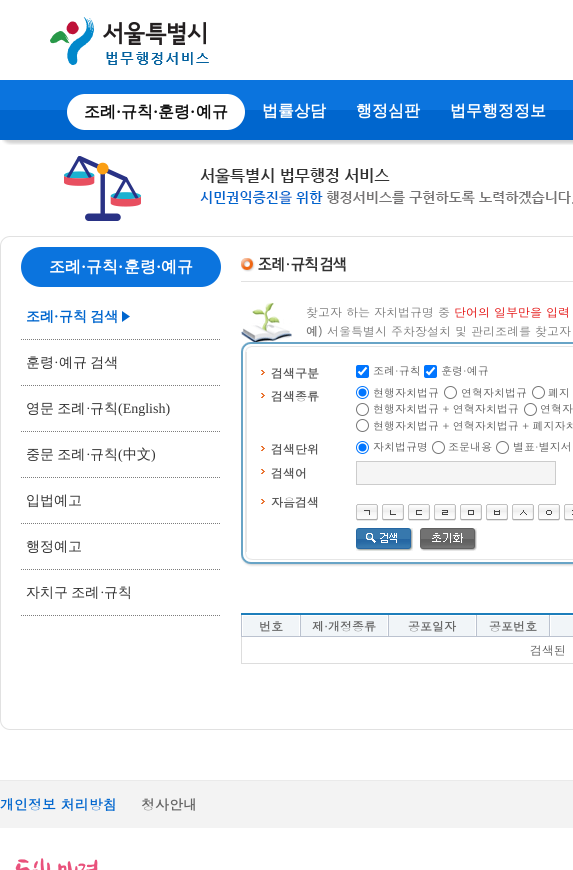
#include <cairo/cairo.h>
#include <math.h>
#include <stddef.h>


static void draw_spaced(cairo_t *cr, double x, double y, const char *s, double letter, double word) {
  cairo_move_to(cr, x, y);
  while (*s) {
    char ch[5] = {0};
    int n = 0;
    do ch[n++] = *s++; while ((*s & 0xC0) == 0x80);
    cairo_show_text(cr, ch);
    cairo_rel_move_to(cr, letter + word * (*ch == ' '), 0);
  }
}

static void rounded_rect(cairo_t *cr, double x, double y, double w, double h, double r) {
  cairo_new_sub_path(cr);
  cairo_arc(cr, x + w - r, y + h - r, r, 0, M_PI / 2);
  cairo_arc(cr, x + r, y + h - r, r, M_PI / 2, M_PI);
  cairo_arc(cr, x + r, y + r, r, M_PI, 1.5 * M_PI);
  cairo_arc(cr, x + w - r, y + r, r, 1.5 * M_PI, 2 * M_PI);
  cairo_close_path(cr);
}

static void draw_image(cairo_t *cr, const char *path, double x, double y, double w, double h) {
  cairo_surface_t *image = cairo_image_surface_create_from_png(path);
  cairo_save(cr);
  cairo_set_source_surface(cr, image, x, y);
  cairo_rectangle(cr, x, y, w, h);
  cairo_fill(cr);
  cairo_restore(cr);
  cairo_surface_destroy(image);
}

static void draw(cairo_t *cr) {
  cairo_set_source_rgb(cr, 1, 1, 1);
  cairo_paint(cr);
  draw_image(cr, "images/1.png", 50, 17, 159, 48);
  draw_image(cr, "images/2.png", 0, 80, 573, 60);
  draw_image(cr, "images/3.png", 67, 94, 17, 36);
  cairo_set_source_rgb(cr, 1, 1, 1);
  cairo_rectangle(cr, 84, 94, 144, 36);
  cairo_fill(cr);
  draw_image(cr, "images/4.png", 228, 94, 17, 36);
  draw_image(cr, "images/5.png", 2, 140, 571, 5);
  draw_image(cr, "images/6.png", 64, 156, 509, 65);
  rounded_rect(cr, 0.5, 236.5, 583, 493, 9.5);
  cairo_set_source_rgb(cr, 225 / 255.0, 225 / 255.0, 225 / 255.0);
  cairo_set_line_width(cr, 1);
  cairo_stroke(cr);
  draw_image(cr, "images/7.png", 21, 247, 20, 40);
  cairo_set_source_rgb(cr, 11 / 255.0, 116 / 255.0, 222 / 255.0);
  cairo_rectangle(cr, 41, 247, 160, 40);
  cairo_fill(cr);
  draw_image(cr, "images/8.png", 201, 247, 20, 40);
  cairo_new_path(cr);
  cairo_move_to(cr, 21, 339.5);
  cairo_line_to(cr, 221, 339.5);
  cairo_set_source_rgb(cr, 125 / 255.0, 125 / 255.0, 125 / 255.0);
  cairo_set_dash(cr, (double[]){1, 1}, 2, 0);
  cairo_stroke(cr);
  draw_image(cr, "images/9.png", 122, 311, 8, 11);
  cairo_new_path(cr);
  cairo_move_to(cr, 21, 385.5);
  cairo_line_to(cr, 221, 385.5);
  cairo_stroke(cr);
  cairo_new_path(cr);
  cairo_move_to(cr, 21, 431.5);
  cairo_line_to(cr, 221, 431.5);
  cairo_stroke(cr);
  cairo_new_path(cr);
  cairo_move_to(cr, 21, 477.5);
  cairo_line_to(cr, 221, 477.5);
  cairo_stroke(cr);
  cairo_new_path(cr);
  cairo_move_to(cr, 21, 523.5);
  cairo_line_to(cr, 221, 523.5);
  cairo_stroke(cr);
  cairo_new_path(cr);
  cairo_move_to(cr, 21, 569.5);
  cairo_line_to(cr, 221, 569.5);
  cairo_stroke(cr);
  cairo_new_path(cr);
  cairo_move_to(cr, 21, 615.5);
  cairo_line_to(cr, 221, 615.5);
  cairo_stroke(cr);
  cairo_set_source_rgb(cr, 225 / 255.0, 225 / 255.0, 225 / 255.0);
  cairo_rectangle(cr, 241, 281, 332, 1);
  cairo_fill(cr);
  draw_image(cr, "images/10.png", 241, 257, 105, 15);
  draw_image(cr, "images/11.png", 241, 302, 51, 40);
  draw_image(cr, "images/12.png", 241, 342, 10, 10);
  draw_image(cr, "images/13.png", 251, 342, 322, 5);
  draw_image(cr, "images/14.png", 241, 352, 6, 200);
  draw_image(cr, "images/15.png", 261, 370, 4, 5);
  cairo_set_source_rgb(cr, 0, 117 / 255.0, 1);
  rounded_rect(cr, 356, 365, 13, 13, 2);
  cairo_fill(cr);
  cairo_new_path(cr);
  cairo_move_to(cr, 358.5, 371.5);
  cairo_line_to(cr, 361, 374);
  cairo_line_to(cr, 366.5, 367.5);
  cairo_set_source_rgb(cr, 1, 1, 1);
  cairo_set_line_width(cr, 2.1);
  cairo_set_dash(cr, NULL, 0, 0);
  cairo_stroke(cr);
  cairo_set_source_rgb(cr, 0, 117 / 255.0, 1);
  rounded_rect(cr, 424, 365, 13, 13, 2);
  cairo_fill(cr);
  cairo_new_path(cr);
  cairo_move_to(cr, 426.5, 371.5);
  cairo_line_to(cr, 429, 374);
  cairo_line_to(cr, 434.5, 367.5);
  cairo_set_source_rgb(cr, 1, 1, 1);
  cairo_stroke(cr);
  draw_image(cr, "images/15.png", 261, 393, 4, 5);
  cairo_arc(cr, 362.5, 392.5, 6, 0, 2 * M_PI);
  cairo_set_source_rgb(cr, 0, 117 / 255.0, 1);
  cairo_set_line_width(cr, 1);
  cairo_stroke(cr);
  cairo_arc(cr, 362.5, 392.5, 4, 0, 2 * M_PI);
  cairo_fill(cr);
  cairo_arc(cr, 450.5, 392.5, 6, 0, 2 * M_PI);
  cairo_set_source_rgb(cr, 118 / 255.0, 118 / 255.0, 118 / 255.0);
  cairo_stroke(cr);
  cairo_arc(cr, 538.5, 392.5, 6, 0, 2 * M_PI);
  cairo_stroke(cr);
  cairo_arc(cr, 362.5, 409.5, 6, 0, 2 * M_PI);
  cairo_stroke(cr);
  cairo_arc(cr, 530.5, 409.5, 6, 0, 2 * M_PI);
  cairo_stroke(cr);
  cairo_arc(cr, 362.5, 425.5, 6, 0, 2 * M_PI);
  cairo_stroke(cr);
  draw_image(cr, "images/15.png", 261, 446, 4, 5);
  cairo_arc(cr, 362.5, 447.5, 6, 0, 2 * M_PI);
  cairo_set_source_rgb(cr, 0, 117 / 255.0, 1);
  cairo_stroke(cr);
  cairo_arc(cr, 362.5, 447.5, 4, 0, 2 * M_PI);
  cairo_fill(cr);
  cairo_arc(cr, 438.5, 447.5, 6, 0, 2 * M_PI);
  cairo_set_source_rgb(cr, 118 / 255.0, 118 / 255.0, 118 / 255.0);
  cairo_stroke(cr);
  cairo_arc(cr, 502.5, 447.5, 6, 0, 2 * M_PI);
  cairo_stroke(cr);
  draw_image(cr, "images/15.png", 261, 469, 4, 5);
  cairo_set_source_rgb(cr, 245 / 255.0, 245 / 255.0, 245 / 255.0);
  cairo_rectangle(cr, 356.5, 461.5, 199, 23);
  cairo_fill_preserve(cr);
  cairo_set_source_rgb(cr, 204 / 255.0, 204 / 255.0, 204 / 255.0);
  cairo_stroke(cr);
  draw_image(cr, "images/15.png", 261, 499, 4, 5);
  draw_image(cr, "images/16.png", 356, 504, 22, 17);
  draw_image(cr, "images/17.png", 382, 504, 22, 17);
  draw_image(cr, "images/18.png", 408, 504, 22, 17);
  draw_image(cr, "images/19.png", 434, 504, 22, 17);
  draw_image(cr, "images/20.png", 460, 504, 22, 17);
  draw_image(cr, "images/21.png", 486, 504, 22, 17);
  draw_image(cr, "images/22.png", 512, 504, 22, 17);
  draw_image(cr, "images/23.png", 538, 504, 22, 17);
  draw_image(cr, "images/24.png", 564, 504, 9, 17);
  draw_image(cr, "images/25.png", 356, 528, 57, 23);
  draw_image(cr, "images/26.png", 420, 528, 57, 23);
  draw_image(cr, "images/27.png", 241, 552, 12, 15);
  draw_image(cr, "images/28.png", 253, 559, 320, 8);
  cairo_set_source_rgb(cr, 241 / 255.0, 245 / 255.0, 248 / 255.0);
  cairo_rectangle(cr, 551, 616, 22, 20);
  cairo_fill(cr);
  cairo_set_source_rgb(cr, 187 / 255.0, 194 / 255.0, 207 / 255.0);
  cairo_rectangle(cr, 549, 636, 24, 1);
  cairo_fill(cr);
  cairo_rectangle(cr, 549, 613, 1, 24);
  cairo_fill(cr);
  cairo_rectangle(cr, 476, 636, 74, 1);
  cairo_fill(cr);
  cairo_rectangle(cr, 476, 613, 1, 24);
  cairo_fill(cr);
  cairo_rectangle(cr, 388, 636, 89, 1);
  cairo_fill(cr);
  cairo_rectangle(cr, 388, 613, 1, 24);
  cairo_fill(cr);
  cairo_rectangle(cr, 300, 636, 89, 1);
  cairo_fill(cr);
  cairo_rectangle(cr, 300, 613, 1, 24);
  cairo_fill(cr);
  cairo_set_source_rgb(cr, 221 / 255.0, 221 / 255.0, 221 / 255.0);
  cairo_rectangle(cr, 241, 663, 332, 1);
  cairo_fill(cr);
  cairo_rectangle(cr, 241, 636, 1, 28);
  cairo_fill(cr);
  cairo_set_source_rgb(cr, 187 / 255.0, 194 / 255.0, 207 / 255.0);
  cairo_rectangle(cr, 241, 636, 60, 1);
  cairo_fill(cr);
  cairo_rectangle(cr, 241, 613, 1, 24);
  cairo_fill(cr);
  cairo_set_source_rgb(cr, 29 / 255.0, 126 / 255.0, 187 / 255.0);
  cairo_rectangle(cr, 241, 613, 332, 2);
  cairo_fill(cr);
  cairo_set_source_rgb(cr, 241 / 255.0, 245 / 255.0, 248 / 255.0);
  cairo_rectangle(cr, 243, 616, 56, 20);
  cairo_fill(cr);
  cairo_rectangle(cr, 301, 616, 86, 20);
  cairo_fill(cr);
  cairo_rectangle(cr, 389, 616, 86, 20);
  cairo_fill(cr);
  cairo_rectangle(cr, 477, 616, 72, 20);
  cairo_fill(cr);
  cairo_set_source_rgb(cr, 243 / 255.0, 243 / 255.0, 243 / 255.0);
  cairo_rectangle(cr, 0, 781, 573, 47);
  cairo_fill(cr);
  cairo_set_source_rgb(cr, 234 / 255.0, 234 / 255.0, 234 / 255.0);
  cairo_rectangle(cr, 0, 780, 573, 1);
  cairo_fill(cr);
  draw_image(cr, "images/29.png", 15, 858, 83, 12);
  cairo_select_font_face(cr, "WenQuanYi Zen Hei", CAIRO_FONT_SLANT_NORMAL, CAIRO_FONT_WEIGHT_BOLD);
  cairo_set_font_size(cr, 16);
  cairo_set_source_rgb(cr, 17 / 255.0, 17 / 255.0, 17 / 255.0);
  cairo_move_to(cr, 84, 117);
  cairo_show_text(cr, "조례");
  cairo_select_font_face(cr, "Liberation Serif", CAIRO_FONT_SLANT_NORMAL, CAIRO_FONT_WEIGHT_BOLD);
  cairo_move_to(cr, 116, 117);
  cairo_show_text(cr, "·");
  cairo_select_font_face(cr, "WenQuanYi Zen Hei", CAIRO_FONT_SLANT_NORMAL, CAIRO_FONT_WEIGHT_BOLD);
  cairo_move_to(cr, 121, 117);
  cairo_show_text(cr, "규칙");
  cairo_select_font_face(cr, "Liberation Serif", CAIRO_FONT_SLANT_NORMAL, CAIRO_FONT_WEIGHT_BOLD);
  cairo_move_to(cr, 153, 117);
  cairo_show_text(cr, "·");
  cairo_select_font_face(cr, "WenQuanYi Zen Hei", CAIRO_FONT_SLANT_NORMAL, CAIRO_FONT_WEIGHT_BOLD);
  cairo_move_to(cr, 158, 117);
  cairo_show_text(cr, "훈령");
  cairo_select_font_face(cr, "Liberation Serif", CAIRO_FONT_SLANT_NORMAL, CAIRO_FONT_WEIGHT_BOLD);
  cairo_move_to(cr, 190, 117);
  cairo_show_text(cr, "·");
  cairo_select_font_face(cr, "WenQuanYi Zen Hei", CAIRO_FONT_SLANT_NORMAL, CAIRO_FONT_WEIGHT_BOLD);
  cairo_move_to(cr, 196, 117);
  cairo_show_text(cr, "예규");
  cairo_set_source_rgb(cr, 1, 1, 1);
  cairo_move_to(cr, 262, 116);
  cairo_show_text(cr, "법률상담");
  cairo_move_to(cr, 356, 116);
  cairo_show_text(cr, "행정심판");
  cairo_move_to(cr, 450, 116);
  cairo_show_text(cr, "법무행정정보");
  cairo_move_to(cr, 49, 272);
  cairo_show_text(cr, "조례");
  cairo_select_font_face(cr, "Liberation Serif", CAIRO_FONT_SLANT_NORMAL, CAIRO_FONT_WEIGHT_BOLD);
  cairo_move_to(cr, 81, 272);
  cairo_show_text(cr, "·");
  cairo_select_font_face(cr, "WenQuanYi Zen Hei", CAIRO_FONT_SLANT_NORMAL, CAIRO_FONT_WEIGHT_BOLD);
  cairo_move_to(cr, 86, 272);
  cairo_show_text(cr, "규칙");
  cairo_select_font_face(cr, "Liberation Serif", CAIRO_FONT_SLANT_NORMAL, CAIRO_FONT_WEIGHT_BOLD);
  cairo_move_to(cr, 118, 272);
  cairo_show_text(cr, "·");
  cairo_select_font_face(cr, "WenQuanYi Zen Hei", CAIRO_FONT_SLANT_NORMAL, CAIRO_FONT_WEIGHT_BOLD);
  cairo_move_to(cr, 124, 272);
  cairo_show_text(cr, "훈령");
  cairo_select_font_face(cr, "Liberation Serif", CAIRO_FONT_SLANT_NORMAL, CAIRO_FONT_WEIGHT_BOLD);
  cairo_move_to(cr, 156, 272);
  cairo_show_text(cr, "·");
  cairo_select_font_face(cr, "WenQuanYi Zen Hei", CAIRO_FONT_SLANT_NORMAL, CAIRO_FONT_WEIGHT_BOLD);
  cairo_move_to(cr, 161, 272);
  cairo_show_text(cr, "예규");
  cairo_set_font_size(cr, 14);
  cairo_set_source_rgb(cr, 0, 102 / 255.0, 206 / 255.0);
  cairo_move_to(cr, 26, 321);
  cairo_show_text(cr, "조례");
  cairo_select_font_face(cr, "Liberation Serif", CAIRO_FONT_SLANT_NORMAL, CAIRO_FONT_WEIGHT_BOLD);
  cairo_move_to(cr, 54, 321);
  cairo_show_text(cr, "·");
  cairo_select_font_face(cr, "WenQuanYi Zen Hei", CAIRO_FONT_SLANT_NORMAL, CAIRO_FONT_WEIGHT_BOLD);
  draw_spaced(cr, 59, 321, "규칙 검색", 0, -1);
  cairo_select_font_face(cr, "WenQuanYi Zen Hei Medium", CAIRO_FONT_SLANT_NORMAL, CAIRO_FONT_WEIGHT_NORMAL);
  cairo_set_source_rgb(cr, 51 / 255.0, 51 / 255.0, 51 / 255.0);
  cairo_move_to(cr, 26, 367);
  cairo_show_text(cr, "훈령");
  cairo_select_font_face(cr, "Liberation Serif", CAIRO_FONT_SLANT_NORMAL, CAIRO_FONT_WEIGHT_NORMAL);
  cairo_move_to(cr, 54, 367);
  cairo_show_text(cr, "·");
  cairo_select_font_face(cr, "WenQuanYi Zen Hei Medium", CAIRO_FONT_SLANT_NORMAL, CAIRO_FONT_WEIGHT_NORMAL);
  draw_spaced(cr, 59, 367, "예규 검색", 0, -1);
  draw_spaced(cr, 26, 413, "영문 조례", 0, -1);
  cairo_select_font_face(cr, "Liberation Serif", CAIRO_FONT_SLANT_NORMAL, CAIRO_FONT_WEIGHT_NORMAL);
  cairo_move_to(cr, 86, 413);
  cairo_show_text(cr, "·");
  cairo_select_font_face(cr, "WenQuanYi Zen Hei Medium", CAIRO_FONT_SLANT_NORMAL, CAIRO_FONT_WEIGHT_NORMAL);
  cairo_move_to(cr, 90, 413);
  cairo_show_text(cr, "규칙");
  cairo_select_font_face(cr, "Liberation Serif", CAIRO_FONT_SLANT_NORMAL, CAIRO_FONT_WEIGHT_NORMAL);
  cairo_move_to(cr, 118, 413);
  cairo_show_text(cr, "(English)");
  cairo_select_font_face(cr, "WenQuanYi Zen Hei Medium", CAIRO_FONT_SLANT_NORMAL, CAIRO_FONT_WEIGHT_NORMAL);
  draw_spaced(cr, 26, 459, "중문 조례", 0, -1);
  cairo_select_font_face(cr, "Liberation Serif", CAIRO_FONT_SLANT_NORMAL, CAIRO_FONT_WEIGHT_NORMAL);
  cairo_move_to(cr, 86, 459);
  cairo_show_text(cr, "·");
  cairo_select_font_face(cr, "WenQuanYi Zen Hei Medium", CAIRO_FONT_SLANT_NORMAL, CAIRO_FONT_WEIGHT_NORMAL);
  cairo_move_to(cr, 90, 459);
  cairo_show_text(cr, "규칙");
  cairo_select_font_face(cr, "Liberation Serif", CAIRO_FONT_SLANT_NORMAL, CAIRO_FONT_WEIGHT_NORMAL);
  cairo_move_to(cr, 118, 459);
  cairo_show_text(cr, "(");
  cairo_select_font_face(cr, "WenQuanYi Zen Hei Medium", CAIRO_FONT_SLANT_NORMAL, CAIRO_FONT_WEIGHT_NORMAL);
  cairo_move_to(cr, 123, 459);
  cairo_show_text(cr, "中文");
  cairo_select_font_face(cr, "Liberation Serif", CAIRO_FONT_SLANT_NORMAL, CAIRO_FONT_WEIGHT_NORMAL);
  cairo_move_to(cr, 151, 459);
  cairo_show_text(cr, ")");
  cairo_select_font_face(cr, "WenQuanYi Zen Hei Medium", CAIRO_FONT_SLANT_NORMAL, CAIRO_FONT_WEIGHT_NORMAL);
  cairo_move_to(cr, 26, 505);
  cairo_show_text(cr, "입법예고");
  cairo_move_to(cr, 26, 551);
  cairo_show_text(cr, "행정예고");
  draw_spaced(cr, 26, 597, "자치구 조례", 0, -1);
  cairo_select_font_face(cr, "Liberation Serif", CAIRO_FONT_SLANT_NORMAL, CAIRO_FONT_WEIGHT_NORMAL);
  cairo_move_to(cr, 100, 597);
  cairo_show_text(cr, "·");
  cairo_select_font_face(cr, "WenQuanYi Zen Hei Medium", CAIRO_FONT_SLANT_NORMAL, CAIRO_FONT_WEIGHT_NORMAL);
  cairo_move_to(cr, 104, 597);
  cairo_show_text(cr, "규칙");
  cairo_select_font_face(cr, "Dotum", CAIRO_FONT_SLANT_NORMAL, CAIRO_FONT_WEIGHT_NORMAL);
  cairo_set_font_size(cr, 12);
  cairo_set_source_rgb(cr, 119 / 255.0, 119 / 255.0, 119 / 255.0);
  cairo_move_to(cr, 306, 317);
  cairo_show_text(cr, "찾고자 하는 자치법규명 중");
  cairo_set_source_rgb(cr, 226 / 255.0, 0, 0);
  cairo_move_to(cr, 454, 317);
  cairo_show_text(cr, "단어의 일부만을 입력");
  cairo_select_font_face(cr, "Dotum", CAIRO_FONT_SLANT_NORMAL, CAIRO_FONT_WEIGHT_BOLD);
  cairo_set_source_rgb(cr, 119 / 255.0, 119 / 255.0, 119 / 255.0);
  cairo_move_to(cr, 306, 336);
  cairo_show_text(cr, "예)");
  cairo_select_font_face(cr, "Dotum", CAIRO_FONT_SLANT_NORMAL, CAIRO_FONT_WEIGHT_NORMAL);
  cairo_move_to(cr, 327, 336);
  cairo_show_text(cr, "서울특별시 주차장설치 및 관리조례를 찾고자");
  cairo_select_font_face(cr, "Dotum", CAIRO_FONT_SLANT_NORMAL, CAIRO_FONT_WEIGHT_BOLD);
  cairo_set_source_rgb(cr, 85 / 255.0, 85 / 255.0, 85 / 255.0);
  cairo_move_to(cr, 271, 378);
  cairo_show_text(cr, "검색구분");
  cairo_select_font_face(cr, "Dotum", CAIRO_FONT_SLANT_NORMAL, CAIRO_FONT_WEIGHT_NORMAL);
  cairo_set_font_size(cr, 11);
  cairo_move_to(cr, 373, 375);
  cairo_show_text(cr, "조례·규칙");
  cairo_move_to(cr, 441, 375);
  cairo_show_text(cr, "훈령·예규");
  cairo_select_font_face(cr, "Dotum", CAIRO_FONT_SLANT_NORMAL, CAIRO_FONT_WEIGHT_BOLD);
  cairo_set_font_size(cr, 12);
  cairo_move_to(cr, 271, 401);
  cairo_show_text(cr, "검색종류");
  cairo_select_font_face(cr, "Dotum", CAIRO_FONT_SLANT_NORMAL, CAIRO_FONT_WEIGHT_NORMAL);
  cairo_set_font_size(cr, 11);
  cairo_move_to(cr, 373, 397);
  cairo_show_text(cr, "현행자치법규");
  cairo_move_to(cr, 461, 397);
  cairo_show_text(cr, "연혁자치법규");
  cairo_move_to(cr, 548, 397);
  cairo_show_text(cr, "폐지");
  cairo_move_to(cr, 373, 413);
  cairo_show_text(cr, "현행자치법규 + 연혁자치법규");
  cairo_move_to(cr, 540, 413);
  cairo_show_text(cr, "연혁자");
  cairo_move_to(cr, 373, 430);
  cairo_show_text(cr, "현행자치법규 + 연혁자치법규 + 폐지자치");
  cairo_select_font_face(cr, "Dotum", CAIRO_FONT_SLANT_NORMAL, CAIRO_FONT_WEIGHT_BOLD);
  cairo_set_font_size(cr, 12);
  cairo_move_to(cr, 271, 454);
  cairo_show_text(cr, "검색단위");
  cairo_select_font_face(cr, "Dotum", CAIRO_FONT_SLANT_NORMAL, CAIRO_FONT_WEIGHT_NORMAL);
  cairo_set_font_size(cr, 11);
  cairo_move_to(cr, 373, 451);
  cairo_show_text(cr, "자치법규명");
  cairo_move_to(cr, 448, 451);
  cairo_show_text(cr, "조문내용");
  cairo_move_to(cr, 513, 451);
  cairo_show_text(cr, "별표·별지서");
  cairo_select_font_face(cr, "Dotum", CAIRO_FONT_SLANT_NORMAL, CAIRO_FONT_WEIGHT_BOLD);
  cairo_set_font_size(cr, 12);
  cairo_move_to(cr, 271, 478);
  cairo_show_text(cr, "검색어");
  cairo_move_to(cr, 271, 507);
  cairo_show_text(cr, "자음검색");
  cairo_set_source_rgb(cr, 102 / 255.0, 102 / 255.0, 102 / 255.0);
  cairo_move_to(cr, 259, 631);
  cairo_show_text(cr, "번호");
  cairo_move_to(cr, 312, 631);
  cairo_show_text(cr, "제·개정종류");
  cairo_move_to(cr, 408, 631);
  cairo_show_text(cr, "공포일자");
  cairo_move_to(cr, 489, 631);
  cairo_show_text(cr, "공포번호");
  cairo_select_font_face(cr, "Dotum", CAIRO_FONT_SLANT_NORMAL, CAIRO_FONT_WEIGHT_NORMAL);
  cairo_set_source_rgb(cr, 85 / 255.0, 85 / 255.0, 85 / 255.0);
  cairo_move_to(cr, 530, 655);
  cairo_show_text(cr, "검색된");
  cairo_select_font_face(cr, "Dotum", CAIRO_FONT_SLANT_NORMAL, CAIRO_FONT_WEIGHT_BOLD);
  cairo_set_font_size(cr, 14);
  cairo_set_source_rgb(cr, 0, 102 / 255.0, 206 / 255.0);
  cairo_move_to(cr, 0, 810);
  cairo_show_text(cr, "개인정보 처리방침");
  cairo_set_source_rgb(cr, 102 / 255.0, 102 / 255.0, 102 / 255.0);
  cairo_move_to(cr, 141, 810);
  cairo_show_text(cr, "청사안내");
}

int main(void) {
  cairo_surface_t *surface = cairo_image_surface_create(CAIRO_FORMAT_RGB24, 573, 870);
  cairo_t *cr = cairo_create(surface);
  cairo_font_options_t *options = cairo_font_options_create();
  cairo_font_options_set_hint_metrics(options, CAIRO_HINT_METRICS_OFF);
  cairo_font_options_set_hint_style(options, CAIRO_HINT_STYLE_NONE);
  cairo_set_font_options(cr, options);
  cairo_set_miter_limit(cr, 4);
  draw(cr);
  cairo_surface_write_to_png(surface, "out.png");
  cairo_font_options_destroy(options);
  cairo_destroy(cr);
  cairo_surface_destroy(surface);
  return 0;
}
